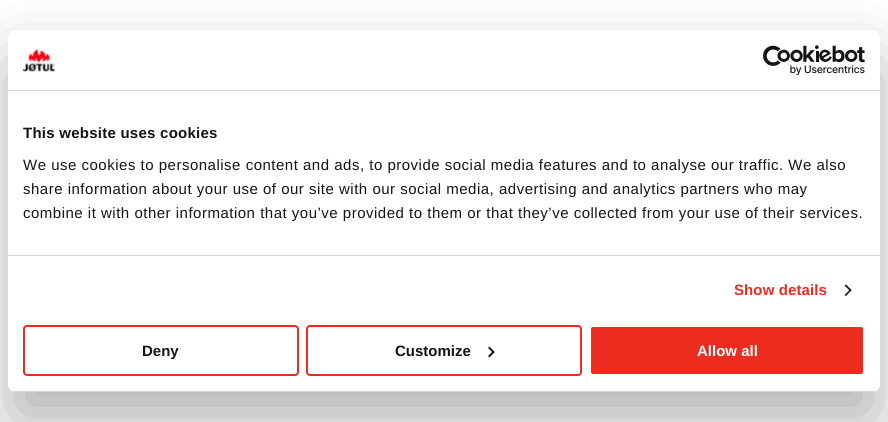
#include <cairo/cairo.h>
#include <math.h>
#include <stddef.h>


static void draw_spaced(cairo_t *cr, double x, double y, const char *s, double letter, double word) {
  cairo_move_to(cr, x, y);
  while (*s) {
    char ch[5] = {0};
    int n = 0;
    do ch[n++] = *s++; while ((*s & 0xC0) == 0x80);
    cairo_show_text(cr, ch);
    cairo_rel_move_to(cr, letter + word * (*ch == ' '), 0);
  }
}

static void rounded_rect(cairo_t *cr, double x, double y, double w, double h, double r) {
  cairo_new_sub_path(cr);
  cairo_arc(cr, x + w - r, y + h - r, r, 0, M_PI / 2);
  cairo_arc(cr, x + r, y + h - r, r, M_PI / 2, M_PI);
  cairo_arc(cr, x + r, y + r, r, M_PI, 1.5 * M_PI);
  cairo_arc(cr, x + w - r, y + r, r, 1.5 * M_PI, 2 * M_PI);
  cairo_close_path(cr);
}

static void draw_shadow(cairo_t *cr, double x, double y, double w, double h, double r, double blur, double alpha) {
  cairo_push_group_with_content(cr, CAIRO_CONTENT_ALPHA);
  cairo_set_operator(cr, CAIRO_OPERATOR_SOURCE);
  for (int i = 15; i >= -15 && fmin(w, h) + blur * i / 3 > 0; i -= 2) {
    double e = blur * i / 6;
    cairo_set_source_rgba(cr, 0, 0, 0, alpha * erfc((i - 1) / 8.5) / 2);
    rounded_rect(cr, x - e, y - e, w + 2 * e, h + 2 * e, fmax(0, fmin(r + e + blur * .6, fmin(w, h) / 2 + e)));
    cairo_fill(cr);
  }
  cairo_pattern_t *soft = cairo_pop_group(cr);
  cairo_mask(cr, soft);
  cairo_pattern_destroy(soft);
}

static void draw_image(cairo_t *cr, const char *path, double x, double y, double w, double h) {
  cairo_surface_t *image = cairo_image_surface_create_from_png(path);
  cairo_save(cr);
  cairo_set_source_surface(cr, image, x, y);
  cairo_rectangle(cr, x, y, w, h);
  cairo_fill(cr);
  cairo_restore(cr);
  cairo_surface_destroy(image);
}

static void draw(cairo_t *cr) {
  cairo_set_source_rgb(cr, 1, 1, 1);
  cairo_paint(cr);
  cairo_set_source_rgb(cr, 0, 0, 0);
  draw_shadow(cr, 8, 62, 872, 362, 8, 34, 0.3);
  cairo_set_source_rgb(cr, 1, 1, 1);
  rounded_rect(cr, 8, 30, 872, 362, 8);
  cairo_fill(cr);
  cairo_set_source_rgb(cr, 214 / 255.0, 214 / 255.0, 214 / 255.0);
  cairo_rectangle(cr, 8, 90, 872, 1);
  cairo_fill(cr);
  draw_image(cr, "images/1.png", 23, 49, 32, 23);
  draw_image(cr, "images/2.png", 763, 45, 102, 30);
  cairo_rectangle(cr, 8, 255, 872, 1);
  cairo_fill(cr);
  cairo_set_source_rgb(cr, 20 / 255.0, 20 / 255.0, 20 / 255.0);
  cairo_new_path(cr);
  cairo_move_to(cr, 846, 284.5);
  cairo_line_to(cr, 851.5, 290);
  cairo_line_to(cr, 850.5, 291.5);
  cairo_line_to(cr, 844.5, 285.5);
  cairo_close_path(cr);
  cairo_fill(cr);
  cairo_new_path(cr);
  cairo_move_to(cr, 850.5, 289);
  cairo_line_to(cr, 851.5, 290);
  cairo_line_to(cr, 846, 296);
  cairo_line_to(cr, 844.5, 295);
  cairo_close_path(cr);
  cairo_fill(cr);
  cairo_save(cr);
  rounded_rect(cr, 8, 30, 872, 362, 8);
  cairo_clip(cr);
  cairo_set_source_rgb(cr, 214 / 255.0, 214 / 255.0, 214 / 255.0);
  cairo_rectangle(cr, 8, 391, 872, 1);
  cairo_fill(cr);
  cairo_restore(cr);
  rounded_rect(cr, 24, 326, 274, 49, 3);
  cairo_set_source_rgb(cr, 237 / 255.0, 44 / 255.0, 32 / 255.0);
  cairo_stroke(cr);
  rounded_rect(cr, 307, 326, 274, 49, 3);
  cairo_stroke(cr);
  cairo_set_source_rgb(cr, 20 / 255.0, 20 / 255.0, 20 / 255.0);
  cairo_new_path(cr);
  cairo_move_to(cr, 489.5, 346.5);
  cairo_line_to(cr, 494.5, 352);
  cairo_line_to(cr, 493.5, 353.5);
  cairo_line_to(cr, 488, 348);
  cairo_close_path(cr);
  cairo_fill(cr);
  cairo_new_path(cr);
  cairo_move_to(cr, 493.5, 350.5);
  cairo_line_to(cr, 494.5, 352);
  cairo_line_to(cr, 489.5, 357.5);
  cairo_line_to(cr, 488, 356);
  cairo_close_path(cr);
  cairo_fill(cr);
  cairo_set_source_rgb(cr, 237 / 255.0, 44 / 255.0, 32 / 255.0);
  rounded_rect(cr, 590, 326, 274, 49, 3);
  cairo_fill_preserve(cr);
  cairo_set_source_rgb(cr, 1, 1, 1);
  cairo_stroke(cr);
  cairo_select_font_face(cr, "Liberation Sans", CAIRO_FONT_SLANT_NORMAL, CAIRO_FONT_WEIGHT_BOLD);
  cairo_set_font_size(cr, 15);
  cairo_set_source_rgb(cr, 20 / 255.0, 20 / 255.0, 20 / 255.0);
  draw_spaced(cr, 23, 138, "This website uses cookies", 0.25, 0);
  cairo_select_font_face(cr, "Liberation Sans", CAIRO_FONT_SLANT_NORMAL, CAIRO_FONT_WEIGHT_NORMAL);
  draw_spaced(cr, 23, 170, "We use cookies to personalise content and ads, to provide social media features and to analyse our traffic. We also", 0.5, 0);
  draw_spaced(cr, 23, 194, "share information about your use of our site with our social media, advertising and analytics partners who may", 0.5, 0);
  draw_spaced(cr, 23, 218, "combine it with other information that you’ve provided to them or that they’ve collected from your use of their services.", 0.5, 0);
  cairo_select_font_face(cr, "Liberation Sans", CAIRO_FONT_SLANT_NORMAL, CAIRO_FONT_WEIGHT_BOLD);
  cairo_set_source_rgb(cr, 237 / 255.0, 44 / 255.0, 32 / 255.0);
  draw_spaced(cr, 734, 295, "Show details", 0.1, 0);
  cairo_set_source_rgb(cr, 20 / 255.0, 20 / 255.0, 20 / 255.0);
  cairo_move_to(cr, 142, 356);
  cairo_show_text(cr, "Deny");
  cairo_move_to(cr, 395, 356);
  cairo_show_text(cr, "Customize");
  cairo_set_source_rgb(cr, 1, 1, 1);
  cairo_move_to(cr, 697, 356);
  cairo_show_text(cr, "Allow all");
}

int main(void) {
  cairo_surface_t *surface = cairo_image_surface_create(CAIRO_FORMAT_RGB24, 888, 422);
  cairo_t *cr = cairo_create(surface);
  cairo_font_options_t *options = cairo_font_options_create();
  cairo_font_options_set_hint_metrics(options, CAIRO_HINT_METRICS_OFF);
  cairo_font_options_set_hint_style(options, CAIRO_HINT_STYLE_NONE);
  cairo_set_font_options(cr, options);
  cairo_set_miter_limit(cr, 4);
  draw(cr);
  cairo_surface_write_to_png(surface, "out.png");
  cairo_font_options_destroy(options);
  cairo_destroy(cr);
  cairo_surface_destroy(surface);
  return 0;
}
